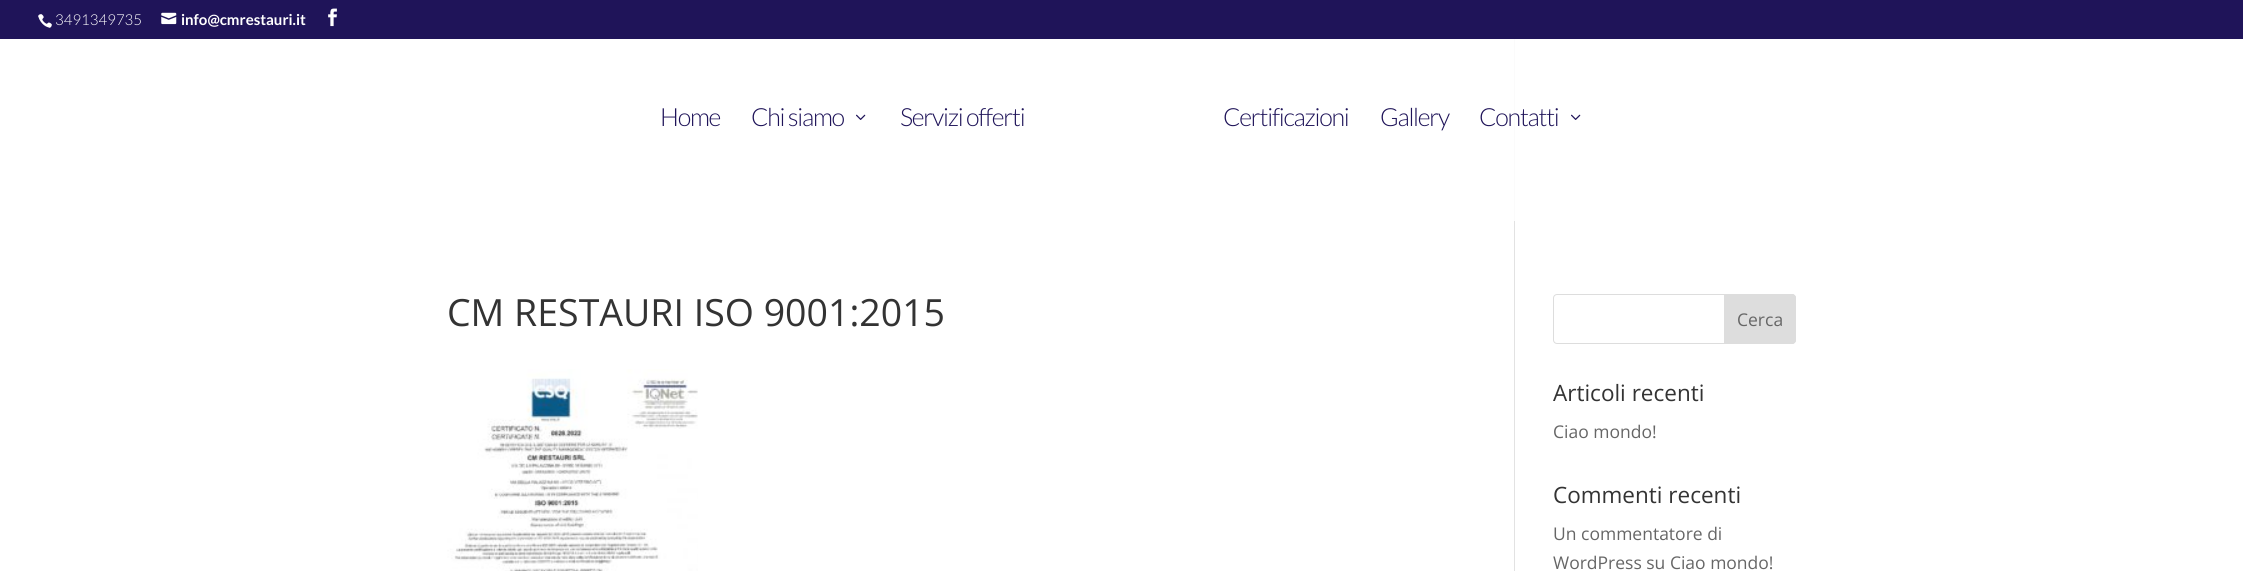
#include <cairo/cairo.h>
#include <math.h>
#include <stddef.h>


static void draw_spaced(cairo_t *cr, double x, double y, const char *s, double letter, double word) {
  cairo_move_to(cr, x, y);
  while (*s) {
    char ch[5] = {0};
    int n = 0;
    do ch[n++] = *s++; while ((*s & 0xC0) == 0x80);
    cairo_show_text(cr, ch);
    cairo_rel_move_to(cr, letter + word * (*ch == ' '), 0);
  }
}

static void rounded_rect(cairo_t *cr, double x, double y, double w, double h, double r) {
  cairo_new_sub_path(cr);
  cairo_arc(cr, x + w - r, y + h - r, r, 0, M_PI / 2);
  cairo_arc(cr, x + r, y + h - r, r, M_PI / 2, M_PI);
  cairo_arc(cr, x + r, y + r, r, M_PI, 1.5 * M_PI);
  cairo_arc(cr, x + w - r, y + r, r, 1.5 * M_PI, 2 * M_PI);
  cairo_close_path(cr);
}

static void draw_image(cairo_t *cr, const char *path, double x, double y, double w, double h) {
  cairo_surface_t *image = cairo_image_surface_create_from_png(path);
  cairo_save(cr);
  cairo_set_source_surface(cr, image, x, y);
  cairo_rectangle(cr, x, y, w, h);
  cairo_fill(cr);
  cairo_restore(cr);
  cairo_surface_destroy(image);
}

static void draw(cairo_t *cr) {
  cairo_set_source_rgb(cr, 1, 1, 1);
  cairo_paint(cr);
  cairo_set_source_rgb(cr, 31 / 255.0, 20 / 255.0, 89 / 255.0);
  cairo_rectangle(cr, 0, 0, 2243, 39);
  cairo_fill(cr);
  draw_image(cr, "images/1.png", 38, 14, 14, 14);
  draw_image(cr, "images/2.png", 161, 12, 16, 13);
  draw_image(cr, "images/3.png", 328, 8, 9, 19);
  draw_image(cr, "images/4.png", 856, 114, 10, 6);
  draw_image(cr, "images/4.png", 1571, 114, 10, 6);
  cairo_set_source_rgb(cr, 226 / 255.0, 226 / 255.0, 226 / 255.0);
  cairo_rectangle(cr, 1514, 221, 1, 350);
  cairo_fill(cr);
  cairo_set_source_rgb(cr, 251 / 255.0, 251 / 255.0, 251 / 255.0);
  cairo_rectangle(cr, 1514, 39, 1, 182);
  cairo_fill(cr);
  draw_image(cr, "images/5.png", 447, 369, 251, 202);
  rounded_rect(cr, 1553.5, 294.5, 242, 49, 3.5);
  cairo_set_source_rgb(cr, 221 / 255.0, 221 / 255.0, 221 / 255.0);
  cairo_set_line_width(cr, 1);
  cairo_stroke(cr);
  cairo_new_path(cr);
  cairo_move_to(cr, 1724.5, 294.5);
  cairo_line_to(cr, 1792, 294.5);
  cairo_curve_to(cr, 1794, 294.5, 1795.5, 296, 1795.5, 298);
  cairo_line_to(cr, 1795.5, 340);
  cairo_curve_to(cr, 1795.5, 342, 1794, 343.5, 1792, 343.5);
  cairo_line_to(cr, 1724.5, 343.5);
  cairo_close_path(cr);
  cairo_fill_preserve(cr);
  cairo_stroke(cr);
  cairo_select_font_face(cr, "Lato Light", CAIRO_FONT_SLANT_NORMAL, CAIRO_FONT_WEIGHT_NORMAL);
  cairo_set_font_size(cr, 15);
  cairo_set_source_rgb(cr, 1, 1, 1);
  cairo_move_to(cr, 55, 25);
  cairo_show_text(cr, "3491349735");
  cairo_select_font_face(cr, "Lato", CAIRO_FONT_SLANT_NORMAL, CAIRO_FONT_WEIGHT_BOLD);
  cairo_move_to(cr, 181, 25);
  cairo_show_text(cr, "info@cmrestauri.it");
  cairo_select_font_face(cr, "Lato Light", CAIRO_FONT_SLANT_NORMAL, CAIRO_FONT_WEIGHT_NORMAL);
  cairo_set_font_size(cr, 25);
  cairo_set_source_rgb(cr, 31 / 255.0, 20 / 255.0, 89 / 255.0);
  draw_spaced(cr, 660, 126, "Home", -1.25, 0);
  draw_spaced(cr, 751, 126, "Chi siamo", -1.25, 0);
  draw_spaced(cr, 900, 126, "Servizi offerti", -1.25, 0);
  draw_spaced(cr, 1223, 126, "Certificazioni", -1.25, 0);
  draw_spaced(cr, 1380, 126, "Gallery", -1.25, 0);
  draw_spaced(cr, 1479, 126, "Contatti", -1.25, 0);
  cairo_select_font_face(cr, "Open Sans", CAIRO_FONT_SLANT_NORMAL, CAIRO_FONT_WEIGHT_NORMAL);
  cairo_set_font_size(cr, 37.5);
  cairo_set_source_rgb(cr, 51 / 255.0, 51 / 255.0, 51 / 255.0);
  cairo_move_to(cr, 447, 326);
  cairo_show_text(cr, "CM RESTAURI ISO 9001:2015");
  cairo_set_font_size(cr, 17.5);
  cairo_set_source_rgb(cr, 102 / 255.0, 102 / 255.0, 102 / 255.0);
  cairo_move_to(cr, 1737, 326);
  cairo_show_text(cr, "Cerca");
  cairo_set_font_size(cr, 22.5);
  cairo_set_source_rgb(cr, 51 / 255.0, 51 / 255.0, 51 / 255.0);
  cairo_move_to(cr, 1553, 401);
  cairo_show_text(cr, "Articoli recenti");
  cairo_set_font_size(cr, 17.5);
  cairo_set_source_rgb(cr, 102 / 255.0, 102 / 255.0, 102 / 255.0);
  cairo_move_to(cr, 1553, 438);
  cairo_show_text(cr, "Ciao mondo!");
  cairo_set_font_size(cr, 22.5);
  cairo_set_source_rgb(cr, 51 / 255.0, 51 / 255.0, 51 / 255.0);
  cairo_move_to(cr, 1553, 503);
  cairo_show_text(cr, "Commenti recenti");
  cairo_set_font_size(cr, 17.5);
  cairo_set_source_rgb(cr, 102 / 255.0, 102 / 255.0, 102 / 255.0);
  cairo_move_to(cr, 1553, 540);
  cairo_show_text(cr, "Un commentatore di");
  cairo_move_to(cr, 1553, 569);
  cairo_show_text(cr, "WordPress su Ciao mondo!");
}

int main(void) {
  cairo_surface_t *surface = cairo_image_surface_create(CAIRO_FORMAT_RGB24, 2243, 571);
  cairo_t *cr = cairo_create(surface);
  cairo_font_options_t *options = cairo_font_options_create();
  cairo_font_options_set_hint_metrics(options, CAIRO_HINT_METRICS_OFF);
  cairo_font_options_set_hint_style(options, CAIRO_HINT_STYLE_NONE);
  cairo_set_font_options(cr, options);
  cairo_set_miter_limit(cr, 4);
  draw(cr);
  cairo_surface_write_to_png(surface, "out.png");
  cairo_font_options_destroy(options);
  cairo_destroy(cr);
  cairo_surface_destroy(surface);
  return 0;
}
